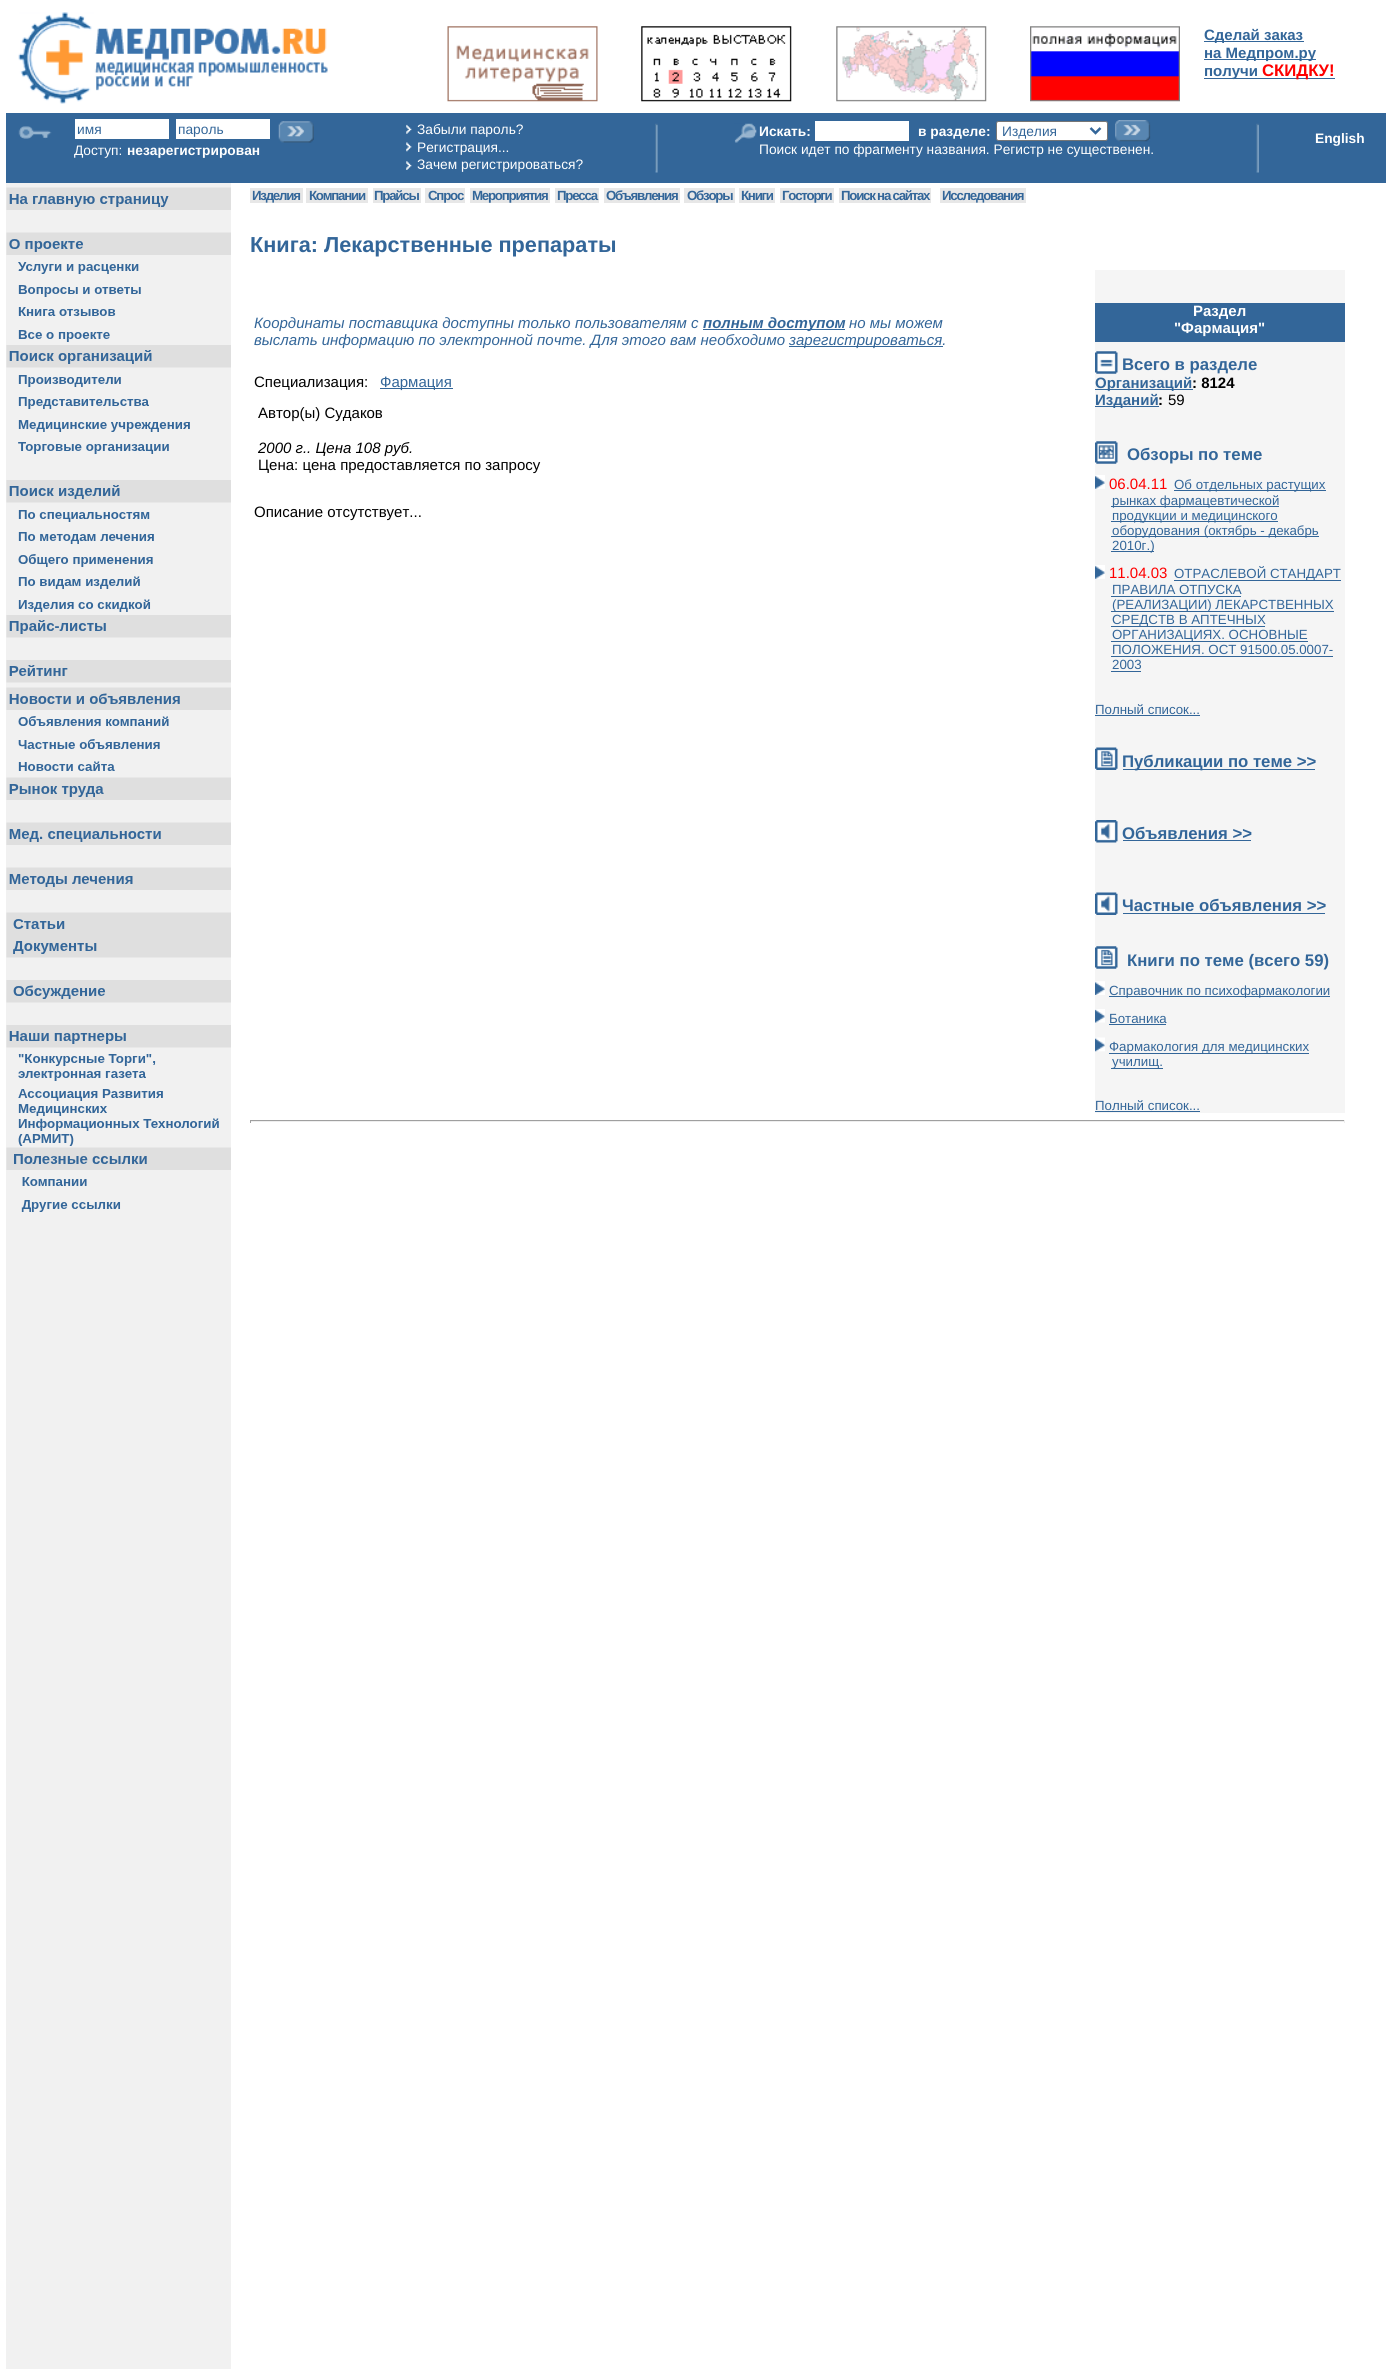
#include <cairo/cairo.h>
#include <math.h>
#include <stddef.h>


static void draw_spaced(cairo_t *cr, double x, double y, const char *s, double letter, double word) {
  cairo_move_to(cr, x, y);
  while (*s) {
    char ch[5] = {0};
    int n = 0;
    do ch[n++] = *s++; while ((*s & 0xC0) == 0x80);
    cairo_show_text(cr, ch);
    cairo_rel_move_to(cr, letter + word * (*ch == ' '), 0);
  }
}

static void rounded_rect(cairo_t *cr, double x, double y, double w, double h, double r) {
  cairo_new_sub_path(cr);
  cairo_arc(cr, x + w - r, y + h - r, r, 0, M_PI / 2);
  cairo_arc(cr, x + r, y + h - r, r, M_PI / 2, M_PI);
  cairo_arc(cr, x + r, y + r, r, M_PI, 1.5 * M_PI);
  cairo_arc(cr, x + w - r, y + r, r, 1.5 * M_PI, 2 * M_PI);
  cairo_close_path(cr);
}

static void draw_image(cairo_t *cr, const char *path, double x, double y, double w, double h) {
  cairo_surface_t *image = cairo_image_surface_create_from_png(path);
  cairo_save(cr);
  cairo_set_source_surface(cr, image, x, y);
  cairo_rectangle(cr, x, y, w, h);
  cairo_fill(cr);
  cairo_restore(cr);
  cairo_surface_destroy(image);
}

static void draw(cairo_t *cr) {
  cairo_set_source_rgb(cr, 1, 1, 1);
  cairo_paint(cr);
  draw_image(cr, "images/1.png", 18, 12, 310, 92);
  draw_image(cr, "images/2.png", 447, 26, 151, 76);
  draw_image(cr, "images/3.png", 641, 26, 151, 76);
  draw_image(cr, "images/4.png", 836, 26, 151, 76);
  draw_image(cr, "images/5.png", 1030, 26, 150, 76);
  cairo_set_source_rgb(cr, 51 / 255.0, 102 / 255.0, 153 / 255.0);
  cairo_rectangle(cr, 1204, 41, 100, 1);
  cairo_fill(cr);
  cairo_rectangle(cr, 1204, 59, 112, 1);
  cairo_fill(cr);
  cairo_rectangle(cr, 1204, 78, 131, 1);
  cairo_fill(cr);
  cairo_rectangle(cr, 6, 113, 1380, 70);
  cairo_fill(cr);
  draw_image(cr, "images/6.png", 18, 126, 34, 13);
  cairo_set_source_rgb(cr, 1, 1, 1);
  cairo_rectangle(cr, 75, 119, 94, 20);
  cairo_fill(cr);
  cairo_rectangle(cr, 176, 119, 94, 20);
  cairo_fill(cr);
  draw_image(cr, "images/7.png", 278, 121, 36, 22);
  draw_image(cr, "images/8.png", 406, 124, 6, 10);
  draw_image(cr, "images/9.png", 406, 142, 6, 10);
  draw_image(cr, "images/10.png", 406, 161, 6, 9);
  draw_image(cr, "images/11.png", 655, 123, 3, 50);
  draw_image(cr, "images/12.png", 734, 123, 23, 20);
  cairo_rectangle(cr, 815, 121, 94, 20);
  cairo_fill(cr);
  rounded_rect(cr, 996.5, 121.5, 111, 19, 2);
  cairo_fill_preserve(cr);
  cairo_set_source_rgb(cr, 118 / 255.0, 118 / 255.0, 118 / 255.0);
  cairo_set_line_width(cr, 1);
  cairo_stroke(cr);
  cairo_new_path(cr);
  cairo_move_to(cr, 1090.5, 128);
  cairo_line_to(cr, 1095.5, 133);
  cairo_line_to(cr, 1100.5, 128);
  cairo_set_source_rgb(cr, 51 / 255.0, 102 / 255.0, 153 / 255.0);
  cairo_set_line_width(cr, 2.5);
  cairo_stroke(cr);
  draw_image(cr, "images/13.png", 1115, 120, 36, 22);
  draw_image(cr, "images/14.png", 1256, 123, 3, 50);
  cairo_set_source_rgb(cr, 241 / 255.0, 241 / 255.0, 241 / 255.0);
  cairo_rectangle(cr, 6, 183, 225, 2186);
  cairo_fill(cr);
  draw_image(cr, "images/15.png", 6, 187, 225, 1025);
  cairo_set_source_rgb(cr, 231 / 255.0, 231 / 255.0, 231 / 255.0);
  cairo_rectangle(cr, 250, 188, 53, 15);
  cairo_fill(cr);
  cairo_rectangle(cr, 306, 188, 62, 15);
  cairo_fill(cr);
  cairo_rectangle(cr, 373, 188, 48, 15);
  cairo_fill(cr);
  cairo_rectangle(cr, 425, 188, 40, 15);
  cairo_fill(cr);
  cairo_rectangle(cr, 470, 188, 80, 15);
  cairo_fill(cr);
  cairo_rectangle(cr, 555, 188, 44, 15);
  cairo_fill(cr);
  cairo_rectangle(cr, 604, 188, 76, 15);
  cairo_fill(cr);
  cairo_rectangle(cr, 684, 188, 51, 15);
  cairo_fill(cr);
  cairo_rectangle(cr, 739, 188, 36, 15);
  cairo_fill(cr);
  cairo_rectangle(cr, 780, 188, 54, 15);
  cairo_fill(cr);
  cairo_rectangle(cr, 839, 188, 92, 15);
  cairo_fill(cr);
  cairo_rectangle(cr, 940, 188, 86, 15);
  cairo_fill(cr);
  cairo_set_source_rgb(cr, 51 / 255.0, 102 / 255.0, 153 / 255.0);
  cairo_rectangle(cr, 703, 329, 142, 1);
  cairo_fill(cr);
  cairo_rectangle(cr, 789, 346, 154, 1);
  cairo_fill(cr);
  cairo_rectangle(cr, 380, 388, 73, 1);
  cairo_fill(cr);
  cairo_set_source_rgb(cr, 245 / 255.0, 245 / 255.0, 245 / 255.0);
  cairo_rectangle(cr, 1095, 270, 250, 843);
  cairo_fill(cr);
  cairo_set_source_rgb(cr, 51 / 255.0, 102 / 255.0, 153 / 255.0);
  cairo_rectangle(cr, 1095, 303, 250, 39);
  cairo_fill(cr);
  draw_image(cr, "images/16.png", 1095, 351, 23, 23);
  cairo_rectangle(cr, 1095, 389, 98, 1);
  cairo_fill(cr);
  cairo_rectangle(cr, 1095, 406, 64, 1);
  cairo_fill(cr);
  draw_image(cr, "images/17.png", 1095, 441, 23, 23);
  draw_image(cr, "images/18.png", 1095, 475, 10, 14);
  cairo_rectangle(cr, 1174, 490, 152, 1);
  cairo_fill(cr);
  cairo_rectangle(cr, 1111, 506, 168, 1);
  cairo_fill(cr);
  cairo_rectangle(cr, 1111, 521, 167, 1);
  cairo_fill(cr);
  cairo_rectangle(cr, 1111, 536, 208, 1);
  cairo_fill(cr);
  cairo_rectangle(cr, 1111, 551, 43, 1);
  cairo_fill(cr);
  draw_image(cr, "images/18.png", 1095, 565, 10, 14);
  cairo_rectangle(cr, 1174, 580, 167, 1);
  cairo_fill(cr);
  cairo_rectangle(cr, 1111, 596, 130, 1);
  cairo_fill(cr);
  cairo_rectangle(cr, 1111, 611, 223, 1);
  cairo_fill(cr);
  cairo_rectangle(cr, 1111, 626, 154, 1);
  cairo_fill(cr);
  cairo_rectangle(cr, 1111, 641, 197, 1);
  cairo_fill(cr);
  cairo_rectangle(cr, 1111, 656, 222, 1);
  cairo_fill(cr);
  cairo_rectangle(cr, 1111, 671, 30, 1);
  cairo_fill(cr);
  cairo_rectangle(cr, 1095, 715, 105, 1);
  cairo_fill(cr);
  draw_image(cr, "images/19.png", 1095, 747, 23, 23);
  cairo_rectangle(cr, 1123, 769, 192, 1);
  cairo_fill(cr);
  draw_image(cr, "images/20.png", 1095, 820, 23, 23);
  cairo_rectangle(cr, 1123, 840, 128, 1);
  cairo_fill(cr);
  draw_image(cr, "images/21.png", 1095, 892, 23, 23);
  cairo_rectangle(cr, 1123, 913, 202, 1);
  cairo_fill(cr);
  draw_image(cr, "images/22.png", 1095, 946, 23, 23);
  draw_image(cr, "images/23.png", 1095, 981, 10, 14);
  cairo_rectangle(cr, 1109, 996, 221, 1);
  cairo_fill(cr);
  draw_image(cr, "images/24.png", 1095, 1009, 10, 14);
  cairo_rectangle(cr, 1109, 1024, 57, 1);
  cairo_fill(cr);
  draw_image(cr, "images/25.png", 1095, 1037, 10, 15);
  cairo_rectangle(cr, 1109, 1053, 200, 1);
  cairo_fill(cr);
  cairo_rectangle(cr, 1111, 1068, 52, 1);
  cairo_fill(cr);
  cairo_rectangle(cr, 1095, 1111, 105, 1);
  cairo_fill(cr);
  cairo_set_source_rgb(cr, 159 / 255.0, 159 / 255.0, 159 / 255.0);
  cairo_rectangle(cr, 250, 1120, 1095, 1);
  cairo_fill(cr);
  cairo_set_source_rgb(cr, 238 / 255.0, 238 / 255.0, 238 / 255.0);
  cairo_rectangle(cr, 1344, 1120, 1, 3);
  cairo_fill(cr);
  cairo_rectangle(cr, 250, 1121, 1095, 1);
  cairo_fill(cr);
  cairo_set_source_rgb(cr, 159 / 255.0, 159 / 255.0, 159 / 255.0);
  cairo_rectangle(cr, 250, 1120, 1, 3);
  cairo_fill(cr);
  cairo_select_font_face(cr, "Liberation Sans", CAIRO_FONT_SLANT_NORMAL, CAIRO_FONT_WEIGHT_BOLD);
  cairo_set_font_size(cr, 15);
  cairo_set_source_rgb(cr, 51 / 255.0, 102 / 255.0, 153 / 255.0);
  cairo_move_to(cr, 1204, 40);
  cairo_show_text(cr, "Сделай заказ");
  cairo_move_to(cr, 1204, 58);
  cairo_show_text(cr, "на Медпром.ру");
  cairo_move_to(cr, 1204, 76);
  cairo_show_text(cr, "получи");
  cairo_set_font_size(cr, 16.75);
  cairo_set_source_rgb(cr, 1, 0, 0);
  cairo_move_to(cr, 1262, 76);
  cairo_show_text(cr, "СКИДКУ!");
  cairo_select_font_face(cr, "Liberation Sans", CAIRO_FONT_SLANT_NORMAL, CAIRO_FONT_WEIGHT_NORMAL);
  cairo_set_font_size(cr, 13.75);
  cairo_set_source_rgb(cr, 51 / 255.0, 102 / 255.0, 153 / 255.0);
  cairo_move_to(cr, 77, 134);
  cairo_show_text(cr, "имя");
  cairo_move_to(cr, 178, 134);
  cairo_show_text(cr, "пароль");
  cairo_set_source_rgb(cr, 1, 1, 1);
  cairo_move_to(cr, 74, 155);
  cairo_show_text(cr, "Доступ:");
  cairo_select_font_face(cr, "Liberation Sans", CAIRO_FONT_SLANT_NORMAL, CAIRO_FONT_WEIGHT_BOLD);
  cairo_move_to(cr, 127, 155);
  cairo_show_text(cr, "незарегистрирован");
  cairo_select_font_face(cr, "Liberation Sans", CAIRO_FONT_SLANT_NORMAL, CAIRO_FONT_WEIGHT_NORMAL);
  cairo_move_to(cr, 417, 134);
  cairo_show_text(cr, "Забыли пароль?");
  cairo_move_to(cr, 417, 152);
  cairo_show_text(cr, "Регистрация...");
  cairo_move_to(cr, 417, 169);
  cairo_show_text(cr, "Зачем регистрироваться?");
  cairo_select_font_face(cr, "Liberation Sans", CAIRO_FONT_SLANT_NORMAL, CAIRO_FONT_WEIGHT_BOLD);
  cairo_move_to(cr, 759, 136);
  cairo_show_text(cr, "Искать:");
  cairo_move_to(cr, 918, 136);
  cairo_show_text(cr, "в разделе:");
  cairo_select_font_face(cr, "Liberation Sans", CAIRO_FONT_SLANT_NORMAL, CAIRO_FONT_WEIGHT_NORMAL);
  cairo_set_source_rgb(cr, 51 / 255.0, 102 / 255.0, 153 / 255.0);
  cairo_move_to(cr, 1002, 136);
  cairo_show_text(cr, "Изделия");
  cairo_set_source_rgb(cr, 1, 1, 1);
  cairo_move_to(cr, 759, 154);
  cairo_show_text(cr, "Поиск идет по фрагменту названия. Регистр не существенен.");
  cairo_select_font_face(cr, "Liberation Sans", CAIRO_FONT_SLANT_NORMAL, CAIRO_FONT_WEIGHT_BOLD);
  cairo_move_to(cr, 1315, 143);
  cairo_show_text(cr, "English");
  cairo_set_font_size(cr, 13.3);
  cairo_set_source_rgb(cr, 51 / 255.0, 102 / 255.0, 153 / 255.0);
  draw_spaced(cr, 252, 200, "Изделия", -1.25, 0);
  draw_spaced(cr, 309, 200, "Компании", -1.25, 0);
  draw_spaced(cr, 374, 200, "Прайсы", -1.25, 0);
  draw_spaced(cr, 428, 200, "Спрос", -1.25, 0);
  draw_spaced(cr, 472, 200, "Мероприятия", -1.25, 0);
  draw_spaced(cr, 557, 200, "Пресса", -1.25, 0);
  draw_spaced(cr, 606, 200, "Объявления", -1.25, 0);
  draw_spaced(cr, 687, 200, "Обзоры", -1.25, 0);
  draw_spaced(cr, 741, 200, "Книги", -1.25, 0);
  draw_spaced(cr, 782, 200, "Госторги", -1.25, 0);
  draw_spaced(cr, 841, 200, "Поиск на сайтах", -1.25, 0);
  draw_spaced(cr, 942, 200, "Исследования", -1.25, 0);
  cairo_set_font_size(cr, 21.7);
  cairo_move_to(cr, 250, 252);
  cairo_show_text(cr, "Книга: Лекарственные препараты");
  cairo_select_font_face(cr, "Liberation Sans", CAIRO_FONT_SLANT_ITALIC, CAIRO_FONT_WEIGHT_NORMAL);
  cairo_set_font_size(cr, 15);
  cairo_move_to(cr, 254, 328);
  cairo_show_text(cr, "Координаты поставщика доступны только пользователям с");
  cairo_select_font_face(cr, "Liberation Sans", CAIRO_FONT_SLANT_ITALIC, CAIRO_FONT_WEIGHT_BOLD);
  cairo_move_to(cr, 703, 328);
  cairo_show_text(cr, "полным доступом");
  cairo_select_font_face(cr, "Liberation Sans", CAIRO_FONT_SLANT_ITALIC, CAIRO_FONT_WEIGHT_NORMAL);
  cairo_move_to(cr, 849, 328);
  cairo_show_text(cr, "но мы можем");
  cairo_move_to(cr, 254, 345);
  cairo_show_text(cr, "выслать информацию по электронной почте. Для этого вам необходимо");
  cairo_move_to(cr, 789, 345);
  cairo_show_text(cr, "зарегистрироваться.");
  cairo_select_font_face(cr, "Liberation Sans", CAIRO_FONT_SLANT_NORMAL, CAIRO_FONT_WEIGHT_NORMAL);
  cairo_set_source_rgb(cr, 0, 0, 0);
  cairo_move_to(cr, 254, 387);
  cairo_show_text(cr, "Специализация:");
  cairo_set_source_rgb(cr, 51 / 255.0, 102 / 255.0, 153 / 255.0);
  cairo_move_to(cr, 380, 387);
  cairo_show_text(cr, "Фармация");
  cairo_set_source_rgb(cr, 0, 0, 0);
  cairo_move_to(cr, 258, 418);
  cairo_show_text(cr, "Автор(ы) Судаков");
  cairo_select_font_face(cr, "Liberation Sans", CAIRO_FONT_SLANT_ITALIC, CAIRO_FONT_WEIGHT_NORMAL);
  cairo_move_to(cr, 258, 453);
  cairo_show_text(cr, "2000 г.. Цена 108 руб.");
  cairo_select_font_face(cr, "Liberation Sans", CAIRO_FONT_SLANT_NORMAL, CAIRO_FONT_WEIGHT_NORMAL);
  cairo_move_to(cr, 258, 470);
  cairo_show_text(cr, "Цена: цена предоставляется по запросу");
  cairo_move_to(cr, 254, 517);
  cairo_show_text(cr, "Описание отсутствует...");
  cairo_select_font_face(cr, "Liberation Sans", CAIRO_FONT_SLANT_NORMAL, CAIRO_FONT_WEIGHT_BOLD);
  cairo_set_source_rgb(cr, 1, 1, 1);
  cairo_move_to(cr, 1193, 316);
  cairo_show_text(cr, "Раздел");
  cairo_move_to(cr, 1174, 333);
  cairo_show_text(cr, "\"Фармация\"");
  cairo_set_font_size(cr, 16.75);
  cairo_set_source_rgb(cr, 51 / 255.0, 102 / 255.0, 153 / 255.0);
  cairo_move_to(cr, 1122, 370);
  cairo_show_text(cr, "Всего в разделе");
  cairo_set_font_size(cr, 15);
  cairo_move_to(cr, 1095, 388);
  cairo_show_text(cr, "Организаций");
  cairo_set_source_rgb(cr, 0, 0, 0);
  cairo_move_to(cr, 1192, 388);
  cairo_show_text(cr, ": 8124");
  cairo_set_source_rgb(cr, 51 / 255.0, 102 / 255.0, 153 / 255.0);
  cairo_move_to(cr, 1095, 405);
  cairo_show_text(cr, "Изданий");
  cairo_set_source_rgb(cr, 0, 0, 0);
  cairo_move_to(cr, 1158, 405);
  cairo_show_text(cr, ":");
  cairo_select_font_face(cr, "Liberation Sans", CAIRO_FONT_SLANT_NORMAL, CAIRO_FONT_WEIGHT_NORMAL);
  cairo_move_to(cr, 1168, 405);
  cairo_show_text(cr, "59");
  cairo_select_font_face(cr, "Liberation Sans", CAIRO_FONT_SLANT_NORMAL, CAIRO_FONT_WEIGHT_BOLD);
  cairo_set_font_size(cr, 16.75);
  cairo_set_source_rgb(cr, 51 / 255.0, 102 / 255.0, 153 / 255.0);
  cairo_move_to(cr, 1127, 460);
  cairo_show_text(cr, "Обзоры по теме");
  cairo_select_font_face(cr, "Liberation Sans", CAIRO_FONT_SLANT_NORMAL, CAIRO_FONT_WEIGHT_NORMAL);
  cairo_set_font_size(cr, 15);
  cairo_set_source_rgb(cr, 1, 0, 0);
  cairo_move_to(cr, 1109, 489);
  cairo_show_text(cr, "06.04.11");
  cairo_set_font_size(cr, 13.3);
  cairo_set_source_rgb(cr, 51 / 255.0, 102 / 255.0, 153 / 255.0);
  cairo_move_to(cr, 1174, 489);
  cairo_show_text(cr, "Об отдельных растущих");
  cairo_move_to(cr, 1112, 505);
  cairo_show_text(cr, "рынках фармацевтической");
  cairo_move_to(cr, 1112, 520);
  cairo_show_text(cr, "продукции и медицинского");
  cairo_move_to(cr, 1112, 535);
  cairo_show_text(cr, "оборудования (октябрь - декабрь");
  cairo_move_to(cr, 1112, 550);
  cairo_show_text(cr, "2010г.)");
  cairo_set_font_size(cr, 15);
  cairo_set_source_rgb(cr, 1, 0, 0);
  cairo_move_to(cr, 1109, 578);
  cairo_show_text(cr, "11.04.03");
  cairo_set_font_size(cr, 13.3);
  cairo_set_source_rgb(cr, 51 / 255.0, 102 / 255.0, 153 / 255.0);
  cairo_move_to(cr, 1174, 578);
  cairo_show_text(cr, "ОТРАСЛЕВОЙ СТАНДАРТ");
  cairo_move_to(cr, 1112, 594);
  cairo_show_text(cr, "ПРАВИЛА ОТПУСКА");
  cairo_move_to(cr, 1112, 609);
  cairo_show_text(cr, "(РЕАЛИЗАЦИИ) ЛЕКАРСТВЕННЫХ");
  cairo_move_to(cr, 1112, 624);
  cairo_show_text(cr, "СРЕДСТВ В АПТЕЧНЫХ");
  cairo_move_to(cr, 1112, 639);
  cairo_show_text(cr, "ОРГАНИЗАЦИЯХ. ОСНОВНЫЕ");
  cairo_move_to(cr, 1112, 654);
  cairo_show_text(cr, "ПОЛОЖЕНИЯ. ОСТ 91500.05.0007-");
  cairo_move_to(cr, 1112, 669);
  cairo_show_text(cr, "2003");
  cairo_move_to(cr, 1095, 714);
  cairo_show_text(cr, "Полный список...");
  cairo_select_font_face(cr, "Liberation Sans", CAIRO_FONT_SLANT_NORMAL, CAIRO_FONT_WEIGHT_BOLD);
  cairo_set_font_size(cr, 16.75);
  cairo_move_to(cr, 1122, 767);
  cairo_show_text(cr, "Публикации по теме >>");
  cairo_move_to(cr, 1122, 839);
  cairo_show_text(cr, "Объявления >>");
  cairo_move_to(cr, 1122, 911);
  cairo_show_text(cr, "Частные объявления >>");
  cairo_move_to(cr, 1127, 966);
  cairo_show_text(cr, "Книги по теме (всего 59)");
  cairo_select_font_face(cr, "Liberation Sans", CAIRO_FONT_SLANT_NORMAL, CAIRO_FONT_WEIGHT_NORMAL);
  cairo_set_font_size(cr, 13.3);
  cairo_move_to(cr, 1109, 995);
  cairo_show_text(cr, "Справочник по психофармакологии");
  cairo_move_to(cr, 1109, 1023);
  cairo_show_text(cr, "Ботаника");
  cairo_move_to(cr, 1109, 1051);
  cairo_show_text(cr, "Фармакология для медицинских");
  cairo_move_to(cr, 1112, 1066);
  cairo_show_text(cr, "училищ.");
  cairo_move_to(cr, 1095, 1110);
  cairo_show_text(cr, "Полный список...");
}

int main(void) {
  cairo_surface_t *surface = cairo_image_surface_create(CAIRO_FORMAT_RGB24, 1392, 2369);
  cairo_t *cr = cairo_create(surface);
  cairo_font_options_t *options = cairo_font_options_create();
  cairo_font_options_set_hint_metrics(options, CAIRO_HINT_METRICS_OFF);
  cairo_font_options_set_hint_style(options, CAIRO_HINT_STYLE_NONE);
  cairo_set_font_options(cr, options);
  cairo_set_miter_limit(cr, 4);
  draw(cr);
  cairo_surface_write_to_png(surface, "out.png");
  cairo_font_options_destroy(options);
  cairo_destroy(cr);
  cairo_surface_destroy(surface);
  return 0;
}
